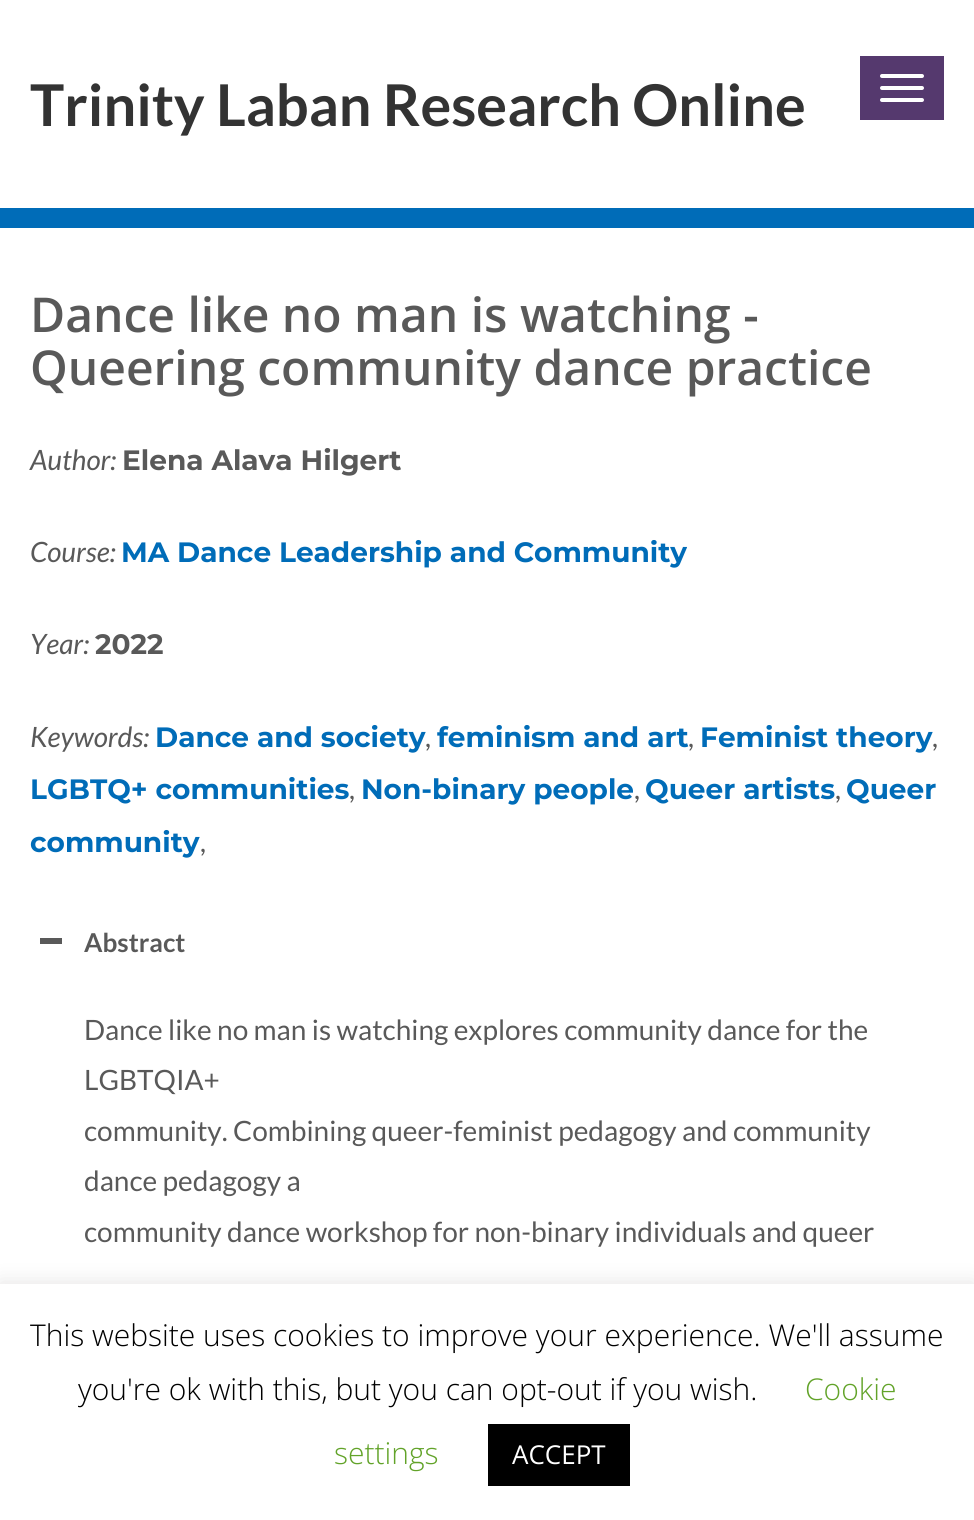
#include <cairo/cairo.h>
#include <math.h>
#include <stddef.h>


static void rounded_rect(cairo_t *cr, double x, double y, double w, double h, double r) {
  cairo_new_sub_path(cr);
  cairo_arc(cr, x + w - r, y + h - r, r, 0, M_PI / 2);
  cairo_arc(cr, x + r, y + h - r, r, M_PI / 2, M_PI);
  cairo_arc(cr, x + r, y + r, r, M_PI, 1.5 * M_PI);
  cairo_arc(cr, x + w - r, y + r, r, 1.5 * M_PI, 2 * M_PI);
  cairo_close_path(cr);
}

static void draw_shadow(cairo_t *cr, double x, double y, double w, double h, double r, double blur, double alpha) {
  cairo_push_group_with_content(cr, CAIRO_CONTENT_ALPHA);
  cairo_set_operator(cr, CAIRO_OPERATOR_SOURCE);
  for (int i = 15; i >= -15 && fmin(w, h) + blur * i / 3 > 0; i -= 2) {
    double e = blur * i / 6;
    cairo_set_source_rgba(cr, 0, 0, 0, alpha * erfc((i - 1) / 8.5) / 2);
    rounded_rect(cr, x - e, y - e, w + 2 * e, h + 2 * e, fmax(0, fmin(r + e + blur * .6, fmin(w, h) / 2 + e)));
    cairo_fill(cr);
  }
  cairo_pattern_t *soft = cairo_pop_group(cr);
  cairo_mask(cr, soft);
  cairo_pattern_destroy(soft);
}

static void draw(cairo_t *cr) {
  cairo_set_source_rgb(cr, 1, 1, 1);
  cairo_paint(cr);
  cairo_set_source_rgb(cr, 85 / 255.0, 57 / 255.0, 110 / 255.0);
  cairo_rectangle(cr, 860, 56, 84, 64);
  cairo_fill(cr);
  cairo_set_source_rgb(cr, 1, 1, 1);
  rounded_rect(cr, 880, 74, 44, 4, 2);
  cairo_fill(cr);
  rounded_rect(cr, 880, 86, 44, 4, 2);
  cairo_fill(cr);
  rounded_rect(cr, 880, 98, 44, 4, 2);
  cairo_fill(cr);
  cairo_set_source_rgb(cr, 0, 108 / 255.0, 184 / 255.0);
  cairo_rectangle(cr, 0, 208, 974, 20);
  cairo_fill(cr);
  cairo_set_source_rgb(cr, 89 / 255.0, 89 / 255.0, 89 / 255.0);
  cairo_rectangle(cr, 40, 938, 22, 6);
  cairo_fill(cr);
  cairo_set_source_rgb(cr, 172 / 255.0, 171 / 255.0, 171 / 255.0);
  draw_shadow(cr, 0, 1282, 974, 236, 0, 10, 0.3);
  cairo_set_source_rgb(cr, 1, 1, 1);
  cairo_rectangle(cr, 0, 1284, 974, 236);
  cairo_fill(cr);
  cairo_set_source_rgb(cr, 0, 0, 0);
  cairo_rectangle(cr, 488, 1424, 142, 62);
  cairo_fill(cr);
  cairo_select_font_face(cr, "Lato", CAIRO_FONT_SLANT_NORMAL, CAIRO_FONT_WEIGHT_BOLD);
  cairo_set_font_size(cr, 57.6);
  cairo_set_source_rgb(cr, 51 / 255.0, 51 / 255.0, 51 / 255.0);
  cairo_move_to(cr, 30, 126);
  cairo_show_text(cr, "Trinity Laban Research Online");
  cairo_select_font_face(cr, "Open Sans SemiBold", CAIRO_FONT_SLANT_NORMAL, CAIRO_FONT_WEIGHT_NORMAL);
  cairo_set_font_size(cr, 48);
  cairo_set_source_rgb(cr, 89 / 255.0, 89 / 255.0, 89 / 255.0);
  cairo_move_to(cr, 30, 332);
  cairo_show_text(cr, "Dance like no man is watching -");
  cairo_move_to(cr, 30, 385);
  cairo_show_text(cr, "Queering community dance practice");
  cairo_select_font_face(cr, "Lato", CAIRO_FONT_SLANT_ITALIC, CAIRO_FONT_WEIGHT_NORMAL);
  cairo_set_font_size(cr, 28);
  cairo_move_to(cr, 30, 470);
  cairo_show_text(cr, "Author:");
  cairo_select_font_face(cr, "Montserrat", CAIRO_FONT_SLANT_NORMAL, CAIRO_FONT_WEIGHT_BOLD);
  cairo_move_to(cr, 122, 470);
  cairo_show_text(cr, "Elena Alava Hilgert");
  cairo_select_font_face(cr, "Lato", CAIRO_FONT_SLANT_ITALIC, CAIRO_FONT_WEIGHT_NORMAL);
  cairo_move_to(cr, 30, 562);
  cairo_show_text(cr, "Course:");
  cairo_select_font_face(cr, "Montserrat", CAIRO_FONT_SLANT_NORMAL, CAIRO_FONT_WEIGHT_BOLD);
  cairo_set_source_rgb(cr, 0, 108 / 255.0, 184 / 255.0);
  cairo_move_to(cr, 121, 562);
  cairo_show_text(cr, "MA Dance Leadership and Community");
  cairo_select_font_face(cr, "Lato", CAIRO_FONT_SLANT_ITALIC, CAIRO_FONT_WEIGHT_NORMAL);
  cairo_set_source_rgb(cr, 89 / 255.0, 89 / 255.0, 89 / 255.0);
  cairo_move_to(cr, 30, 654);
  cairo_show_text(cr, "Year:");
  cairo_select_font_face(cr, "Montserrat", CAIRO_FONT_SLANT_NORMAL, CAIRO_FONT_WEIGHT_BOLD);
  cairo_move_to(cr, 95, 654);
  cairo_show_text(cr, "2022");
  cairo_select_font_face(cr, "Lato", CAIRO_FONT_SLANT_ITALIC, CAIRO_FONT_WEIGHT_NORMAL);
  cairo_move_to(cr, 30, 747);
  cairo_show_text(cr, "Keywords:");
  cairo_select_font_face(cr, "Montserrat", CAIRO_FONT_SLANT_NORMAL, CAIRO_FONT_WEIGHT_BOLD);
  cairo_set_source_rgb(cr, 0, 108 / 255.0, 184 / 255.0);
  cairo_move_to(cr, 155, 747);
  cairo_show_text(cr, "Dance and society");
  cairo_select_font_face(cr, "Lato", CAIRO_FONT_SLANT_NORMAL, CAIRO_FONT_WEIGHT_NORMAL);
  cairo_set_source_rgb(cr, 89 / 255.0, 89 / 255.0, 89 / 255.0);
  cairo_move_to(cr, 425, 747);
  cairo_show_text(cr, ",");
  cairo_select_font_face(cr, "Montserrat", CAIRO_FONT_SLANT_NORMAL, CAIRO_FONT_WEIGHT_BOLD);
  cairo_set_source_rgb(cr, 0, 108 / 255.0, 184 / 255.0);
  cairo_move_to(cr, 437, 747);
  cairo_show_text(cr, "feminism and art");
  cairo_select_font_face(cr, "Lato", CAIRO_FONT_SLANT_NORMAL, CAIRO_FONT_WEIGHT_NORMAL);
  cairo_set_source_rgb(cr, 89 / 255.0, 89 / 255.0, 89 / 255.0);
  cairo_move_to(cr, 688, 747);
  cairo_show_text(cr, ",");
  cairo_select_font_face(cr, "Montserrat", CAIRO_FONT_SLANT_NORMAL, CAIRO_FONT_WEIGHT_BOLD);
  cairo_set_source_rgb(cr, 0, 108 / 255.0, 184 / 255.0);
  cairo_move_to(cr, 700, 747);
  cairo_show_text(cr, "Feminist theory");
  cairo_select_font_face(cr, "Lato", CAIRO_FONT_SLANT_NORMAL, CAIRO_FONT_WEIGHT_NORMAL);
  cairo_set_source_rgb(cr, 89 / 255.0, 89 / 255.0, 89 / 255.0);
  cairo_move_to(cr, 932, 747);
  cairo_show_text(cr, ",");
  cairo_select_font_face(cr, "Montserrat", CAIRO_FONT_SLANT_NORMAL, CAIRO_FONT_WEIGHT_BOLD);
  cairo_set_source_rgb(cr, 0, 108 / 255.0, 184 / 255.0);
  cairo_move_to(cr, 30, 799);
  cairo_show_text(cr, "LGBTQ+ communities");
  cairo_select_font_face(cr, "Lato", CAIRO_FONT_SLANT_NORMAL, CAIRO_FONT_WEIGHT_NORMAL);
  cairo_set_source_rgb(cr, 89 / 255.0, 89 / 255.0, 89 / 255.0);
  cairo_move_to(cr, 349, 799);
  cairo_show_text(cr, ",");
  cairo_select_font_face(cr, "Montserrat", CAIRO_FONT_SLANT_NORMAL, CAIRO_FONT_WEIGHT_BOLD);
  cairo_set_source_rgb(cr, 0, 108 / 255.0, 184 / 255.0);
  cairo_move_to(cr, 361, 799);
  cairo_show_text(cr, "Non-binary people");
  cairo_select_font_face(cr, "Lato", CAIRO_FONT_SLANT_NORMAL, CAIRO_FONT_WEIGHT_NORMAL);
  cairo_set_source_rgb(cr, 89 / 255.0, 89 / 255.0, 89 / 255.0);
  cairo_move_to(cr, 634, 799);
  cairo_show_text(cr, ",");
  cairo_select_font_face(cr, "Montserrat", CAIRO_FONT_SLANT_NORMAL, CAIRO_FONT_WEIGHT_BOLD);
  cairo_set_source_rgb(cr, 0, 108 / 255.0, 184 / 255.0);
  cairo_move_to(cr, 645, 799);
  cairo_show_text(cr, "Queer artists");
  cairo_select_font_face(cr, "Lato", CAIRO_FONT_SLANT_NORMAL, CAIRO_FONT_WEIGHT_NORMAL);
  cairo_set_source_rgb(cr, 89 / 255.0, 89 / 255.0, 89 / 255.0);
  cairo_move_to(cr, 835, 799);
  cairo_show_text(cr, ",");
  cairo_select_font_face(cr, "Montserrat", CAIRO_FONT_SLANT_NORMAL, CAIRO_FONT_WEIGHT_BOLD);
  cairo_set_source_rgb(cr, 0, 108 / 255.0, 184 / 255.0);
  cairo_move_to(cr, 846, 799);
  cairo_show_text(cr, "Queer");
  cairo_move_to(cr, 30, 852);
  cairo_show_text(cr, "community");
  cairo_select_font_face(cr, "Lato", CAIRO_FONT_SLANT_NORMAL, CAIRO_FONT_WEIGHT_NORMAL);
  cairo_set_source_rgb(cr, 89 / 255.0, 89 / 255.0, 89 / 255.0);
  cairo_move_to(cr, 200, 852);
  cairo_show_text(cr, ",");
  cairo_select_font_face(cr, "Lato", CAIRO_FONT_SLANT_NORMAL, CAIRO_FONT_WEIGHT_BOLD);
  cairo_set_font_size(cr, 26);
  cairo_move_to(cr, 84, 952);
  cairo_show_text(cr, "Abstract");
  cairo_select_font_face(cr, "Lato", CAIRO_FONT_SLANT_NORMAL, CAIRO_FONT_WEIGHT_NORMAL);
  cairo_set_font_size(cr, 28);
  cairo_move_to(cr, 84, 1040);
  cairo_show_text(cr, "Dance like no man is watching explores community dance for the");
  cairo_move_to(cr, 84, 1090);
  cairo_show_text(cr, "LGBTQIA+");
  cairo_move_to(cr, 84, 1141);
  cairo_show_text(cr, "community. Combining queer-feminist pedagogy and community");
  cairo_move_to(cr, 84, 1191);
  cairo_show_text(cr, "dance pedagogy a");
  cairo_move_to(cr, 84, 1242);
  cairo_show_text(cr, "community dance workshop for non-binary individuals and queer");
  cairo_select_font_face(cr, "Open Sans Light", CAIRO_FONT_SLANT_NORMAL, CAIRO_FONT_WEIGHT_NORMAL);
  cairo_set_font_size(cr, 30);
  cairo_set_source_rgb(cr, 0, 0, 0);
  cairo_move_to(cr, 30, 1346);
  cairo_show_text(cr, "This website uses cookies to improve your experience. We'll assume");
  cairo_move_to(cr, 78, 1400);
  cairo_show_text(cr, "you're ok with this, but you can opt-out if you wish.");
  cairo_set_source_rgb(cr, 98 / 255.0, 163 / 255.0, 41 / 255.0);
  cairo_move_to(cr, 805, 1400);
  cairo_show_text(cr, "Cookie");
  cairo_move_to(cr, 334, 1464);
  cairo_show_text(cr, "settings");
  cairo_select_font_face(cr, "Open Sans", CAIRO_FONT_SLANT_NORMAL, CAIRO_FONT_WEIGHT_NORMAL);
  cairo_set_font_size(cr, 26);
  cairo_set_source_rgb(cr, 1, 1, 1);
  cairo_move_to(cr, 512, 1464);
  cairo_show_text(cr, "ACCEPT");
}

int main(void) {
  cairo_surface_t *surface = cairo_image_surface_create(CAIRO_FORMAT_RGB24, 974, 1520);
  cairo_t *cr = cairo_create(surface);
  cairo_font_options_t *options = cairo_font_options_create();
  cairo_font_options_set_hint_metrics(options, CAIRO_HINT_METRICS_OFF);
  cairo_font_options_set_hint_style(options, CAIRO_HINT_STYLE_NONE);
  cairo_set_font_options(cr, options);
  cairo_set_miter_limit(cr, 4);
  draw(cr);
  cairo_surface_write_to_png(surface, "out.png");
  cairo_font_options_destroy(options);
  cairo_destroy(cr);
  cairo_surface_destroy(surface);
  return 0;
}
